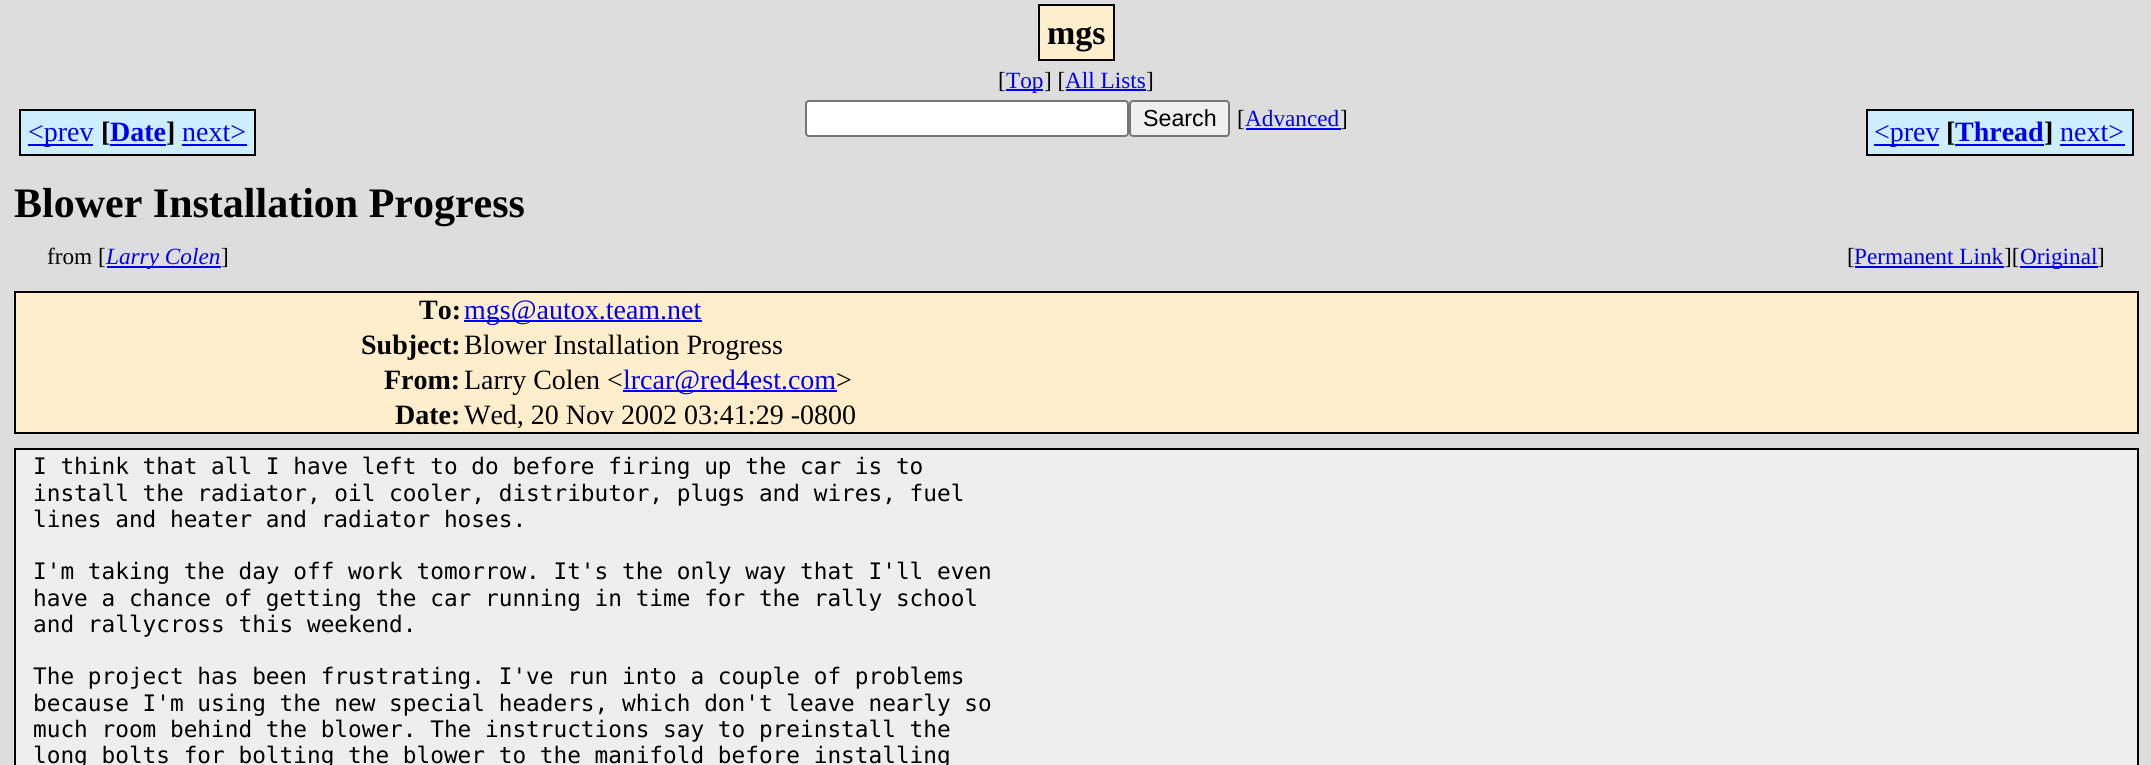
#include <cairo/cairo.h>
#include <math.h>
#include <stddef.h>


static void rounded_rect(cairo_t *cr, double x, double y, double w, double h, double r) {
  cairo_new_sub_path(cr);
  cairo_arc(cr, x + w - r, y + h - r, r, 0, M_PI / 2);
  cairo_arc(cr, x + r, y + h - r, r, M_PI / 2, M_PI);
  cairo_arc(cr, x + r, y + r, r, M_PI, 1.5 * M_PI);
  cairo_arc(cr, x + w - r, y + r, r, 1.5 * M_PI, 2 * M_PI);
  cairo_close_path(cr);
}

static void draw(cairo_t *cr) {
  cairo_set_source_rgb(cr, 221 / 255.0, 221 / 255.0, 221 / 255.0);
  cairo_paint(cr);
  cairo_set_source_rgb(cr, 1, 238 / 255.0, 204 / 255.0);
  cairo_rectangle(cr, 1039, 5, 75, 55);
  cairo_fill_preserve(cr);
  cairo_set_source_rgb(cr, 0, 0, 0);
  cairo_stroke(cr);
  cairo_set_source_rgb(cr, 0, 0, 238 / 255.0);
  cairo_rectangle(cr, 1006, 89, 37, 2);
  cairo_fill(cr);
  cairo_rectangle(cr, 1066, 89, 80, 2);
  cairo_fill(cr);
  cairo_set_source_rgb(cr, 204 / 255.0, 238 / 255.0, 1);
  cairo_rectangle(cr, 21, 111, 72, 43);
  cairo_fill(cr);
  cairo_set_source_rgb(cr, 0, 0, 0);
  cairo_rectangle(cr, 19, 109, 74, 2);
  cairo_fill(cr);
  cairo_rectangle(cr, 19, 154, 74, 2);
  cairo_fill(cr);
  cairo_rectangle(cr, 19, 109, 2, 47);
  cairo_fill(cr);
  cairo_set_source_rgb(cr, 204 / 255.0, 238 / 255.0, 1);
  cairo_rectangle(cr, 93, 109, 7, 47);
  cairo_fill(cr);
  cairo_set_source_rgb(cr, 0, 0, 0);
  cairo_rectangle(cr, 93, 154, 82, 2);
  cairo_fill(cr);
  cairo_set_source_rgb(cr, 0, 0, 238 / 255.0);
  cairo_rectangle(cr, 28, 144, 65, 2);
  cairo_fill(cr);
  cairo_set_source_rgb(cr, 204 / 255.0, 238 / 255.0, 1);
  cairo_rectangle(cr, 100, 111, 75, 43);
  cairo_fill(cr);
  cairo_set_source_rgb(cr, 0, 0, 0);
  cairo_rectangle(cr, 93, 109, 82, 2);
  cairo_fill(cr);
  cairo_set_source_rgb(cr, 0, 0, 238 / 255.0);
  cairo_rectangle(cr, 110, 144, 56, 2);
  cairo_fill(cr);
  cairo_set_source_rgb(cr, 204 / 255.0, 238 / 255.0, 1);
  cairo_rectangle(cr, 175, 109, 7, 47);
  cairo_fill(cr);
  cairo_set_source_rgb(cr, 0, 0, 0);
  cairo_rectangle(cr, 175, 109, 81, 2);
  cairo_fill(cr);
  cairo_rectangle(cr, 175, 154, 7, 2);
  cairo_fill(cr);
  cairo_set_source_rgb(cr, 204 / 255.0, 238 / 255.0, 1);
  cairo_rectangle(cr, 182, 111, 72, 43);
  cairo_fill(cr);
  cairo_set_source_rgb(cr, 0, 0, 0);
  cairo_rectangle(cr, 254, 109, 2, 47);
  cairo_fill(cr);
  cairo_rectangle(cr, 182, 154, 74, 2);
  cairo_fill(cr);
  cairo_set_source_rgb(cr, 0, 0, 238 / 255.0);
  cairo_rectangle(cr, 182, 144, 65, 2);
  cairo_fill(cr);
  cairo_set_source_rgb(cr, 1, 1, 1);
  rounded_rect(cr, 806, 101, 322, 35, 3);
  cairo_fill_preserve(cr);
  cairo_set_source_rgb(cr, 118 / 255.0, 118 / 255.0, 118 / 255.0);
  cairo_stroke(cr);
  cairo_set_source_rgb(cr, 239 / 255.0, 239 / 255.0, 239 / 255.0);
  rounded_rect(cr, 1130, 101, 99, 35, 3);
  cairo_fill_preserve(cr);
  cairo_set_source_rgb(cr, 118 / 255.0, 118 / 255.0, 118 / 255.0);
  cairo_stroke(cr);
  cairo_set_source_rgb(cr, 0, 0, 238 / 255.0);
  cairo_rectangle(cr, 1246, 128, 95, 2);
  cairo_fill(cr);
  cairo_set_source_rgb(cr, 204 / 255.0, 238 / 255.0, 1);
  cairo_rectangle(cr, 1868, 111, 71, 43);
  cairo_fill(cr);
  cairo_set_source_rgb(cr, 0, 0, 0);
  cairo_rectangle(cr, 1866, 109, 73, 2);
  cairo_fill(cr);
  cairo_rectangle(cr, 1866, 154, 73, 2);
  cairo_fill(cr);
  cairo_rectangle(cr, 1866, 109, 2, 47);
  cairo_fill(cr);
  cairo_set_source_rgb(cr, 204 / 255.0, 238 / 255.0, 1);
  cairo_rectangle(cr, 1939, 109, 7, 47);
  cairo_fill(cr);
  cairo_set_source_rgb(cr, 0, 0, 0);
  cairo_rectangle(cr, 1939, 154, 114, 2);
  cairo_fill(cr);
  cairo_set_source_rgb(cr, 0, 0, 238 / 255.0);
  cairo_rectangle(cr, 1874, 144, 65, 2);
  cairo_fill(cr);
  cairo_set_source_rgb(cr, 204 / 255.0, 238 / 255.0, 1);
  cairo_rectangle(cr, 1946, 111, 107, 43);
  cairo_fill(cr);
  cairo_set_source_rgb(cr, 0, 0, 238 / 255.0);
  cairo_rectangle(cr, 1955, 144, 89, 2);
  cairo_fill(cr);
  cairo_set_source_rgb(cr, 0, 0, 0);
  cairo_rectangle(cr, 1939, 109, 114, 2);
  cairo_fill(cr);
  cairo_set_source_rgb(cr, 204 / 255.0, 238 / 255.0, 1);
  cairo_rectangle(cr, 2053, 109, 7, 47);
  cairo_fill(cr);
  cairo_set_source_rgb(cr, 0, 0, 0);
  cairo_rectangle(cr, 2053, 154, 7, 2);
  cairo_fill(cr);
  cairo_rectangle(cr, 2053, 109, 80, 2);
  cairo_fill(cr);
  cairo_set_source_rgb(cr, 204 / 255.0, 238 / 255.0, 1);
  cairo_rectangle(cr, 2060, 111, 72, 43);
  cairo_fill(cr);
  cairo_set_source_rgb(cr, 0, 0, 0);
  cairo_rectangle(cr, 2132, 109, 2, 47);
  cairo_fill(cr);
  cairo_rectangle(cr, 2060, 154, 73, 2);
  cairo_fill(cr);
  cairo_set_source_rgb(cr, 0, 0, 238 / 255.0);
  cairo_rectangle(cr, 2060, 144, 65, 2);
  cairo_fill(cr);
  cairo_rectangle(cr, 107, 266, 114, 2);
  cairo_fill(cr);
  cairo_rectangle(cr, 1855, 266, 149, 2);
  cairo_fill(cr);
  cairo_rectangle(cr, 2020, 266, 78, 2);
  cairo_fill(cr);
  cairo_set_source_rgb(cr, 1, 238 / 255.0, 204 / 255.0);
  cairo_rectangle(cr, 15, 292, 2123, 141);
  cairo_fill_preserve(cr);
  cairo_set_source_rgb(cr, 0, 0, 0);
  cairo_stroke(cr);
  cairo_set_source_rgb(cr, 0, 0, 238 / 255.0);
  cairo_rectangle(cr, 464, 320, 238, 2);
  cairo_fill(cr);
  cairo_rectangle(cr, 623, 390, 214, 2);
  cairo_fill(cr);
  cairo_set_source_rgb(cr, 238 / 255.0, 238 / 255.0, 238 / 255.0);
  cairo_rectangle(cr, 15, 449, 2123, 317);
  cairo_fill_preserve(cr);
  cairo_set_source_rgb(cr, 0, 0, 0);
  cairo_stroke(cr);
  cairo_select_font_face(cr, "Liberation Serif", CAIRO_FONT_SLANT_NORMAL, CAIRO_FONT_WEIGHT_BOLD);
  cairo_set_font_size(cr, 34);
  cairo_move_to(cr, 1047, 44);
  cairo_show_text(cr, "mgs");
  cairo_select_font_face(cr, "Liberation Serif", CAIRO_FONT_SLANT_NORMAL, CAIRO_FONT_WEIGHT_NORMAL);
  cairo_set_font_size(cr, 23.25);
  cairo_move_to(cr, 998, 88);
  cairo_show_text(cr, "[");
  cairo_set_source_rgb(cr, 0, 0, 238 / 255.0);
  cairo_move_to(cr, 1006, 88);
  cairo_show_text(cr, "Top");
  cairo_set_source_rgb(cr, 0, 0, 0);
  cairo_move_to(cr, 1044, 88);
  cairo_show_text(cr, "] [");
  cairo_set_source_rgb(cr, 0, 0, 238 / 255.0);
  cairo_move_to(cr, 1065, 88);
  cairo_show_text(cr, "All Lists");
  cairo_set_source_rgb(cr, 0, 0, 0);
  cairo_move_to(cr, 1146, 88);
  cairo_show_text(cr, "]");
  cairo_set_font_size(cr, 28);
  cairo_set_source_rgb(cr, 0, 0, 238 / 255.0);
  cairo_move_to(cr, 28, 141);
  cairo_show_text(cr, "<prev");
  cairo_select_font_face(cr, "Liberation Serif", CAIRO_FONT_SLANT_NORMAL, CAIRO_FONT_WEIGHT_BOLD);
  cairo_set_source_rgb(cr, 0, 0, 0);
  cairo_move_to(cr, 101, 141);
  cairo_show_text(cr, "[");
  cairo_set_source_rgb(cr, 0, 0, 238 / 255.0);
  cairo_move_to(cr, 110, 141);
  cairo_show_text(cr, "Date");
  cairo_set_source_rgb(cr, 0, 0, 0);
  cairo_move_to(cr, 166, 141);
  cairo_show_text(cr, "]");
  cairo_select_font_face(cr, "Liberation Serif", CAIRO_FONT_SLANT_NORMAL, CAIRO_FONT_WEIGHT_NORMAL);
  cairo_set_source_rgb(cr, 0, 0, 238 / 255.0);
  cairo_move_to(cr, 182, 141);
  cairo_show_text(cr, "next>");
  cairo_select_font_face(cr, "Liberation Sans", CAIRO_FONT_SLANT_NORMAL, CAIRO_FONT_WEIGHT_NORMAL);
  cairo_set_font_size(cr, 23.25);
  cairo_set_source_rgb(cr, 0, 0, 0);
  cairo_move_to(cr, 1143, 126);
  cairo_show_text(cr, "Search");
  cairo_select_font_face(cr, "Liberation Serif", CAIRO_FONT_SLANT_NORMAL, CAIRO_FONT_WEIGHT_NORMAL);
  cairo_move_to(cr, 1237, 126);
  cairo_show_text(cr, "[");
  cairo_set_source_rgb(cr, 0, 0, 238 / 255.0);
  cairo_move_to(cr, 1245, 126);
  cairo_show_text(cr, "Advanced");
  cairo_set_source_rgb(cr, 0, 0, 0);
  cairo_move_to(cr, 1340, 126);
  cairo_show_text(cr, "]");
  cairo_set_font_size(cr, 28);
  cairo_set_source_rgb(cr, 0, 0, 238 / 255.0);
  cairo_move_to(cr, 1874, 141);
  cairo_show_text(cr, "<prev");
  cairo_select_font_face(cr, "Liberation Serif", CAIRO_FONT_SLANT_NORMAL, CAIRO_FONT_WEIGHT_BOLD);
  cairo_set_source_rgb(cr, 0, 0, 0);
  cairo_move_to(cr, 1946, 141);
  cairo_show_text(cr, "[");
  cairo_set_source_rgb(cr, 0, 0, 238 / 255.0);
  cairo_move_to(cr, 1955, 141);
  cairo_show_text(cr, "Thread");
  cairo_set_source_rgb(cr, 0, 0, 0);
  cairo_move_to(cr, 2044, 141);
  cairo_show_text(cr, "]");
  cairo_select_font_face(cr, "Liberation Serif", CAIRO_FONT_SLANT_NORMAL, CAIRO_FONT_WEIGHT_NORMAL);
  cairo_set_source_rgb(cr, 0, 0, 238 / 255.0);
  cairo_move_to(cr, 2060, 141);
  cairo_show_text(cr, "next>");
  cairo_select_font_face(cr, "Liberation Serif", CAIRO_FONT_SLANT_NORMAL, CAIRO_FONT_WEIGHT_BOLD);
  cairo_set_font_size(cr, 42);
  cairo_set_source_rgb(cr, 0, 0, 0);
  cairo_move_to(cr, 14, 217);
  cairo_show_text(cr, "Blower Installation Progress");
  cairo_select_font_face(cr, "Liberation Serif", CAIRO_FONT_SLANT_NORMAL, CAIRO_FONT_WEIGHT_NORMAL);
  cairo_set_font_size(cr, 23.25);
  cairo_move_to(cr, 47, 264);
  cairo_show_text(cr, "from [");
  cairo_select_font_face(cr, "Liberation Serif", CAIRO_FONT_SLANT_ITALIC, CAIRO_FONT_WEIGHT_NORMAL);
  cairo_set_source_rgb(cr, 0, 0, 238 / 255.0);
  cairo_move_to(cr, 106, 264);
  cairo_show_text(cr, "Larry Colen");
  cairo_select_font_face(cr, "Liberation Serif", CAIRO_FONT_SLANT_NORMAL, CAIRO_FONT_WEIGHT_NORMAL);
  cairo_set_source_rgb(cr, 0, 0, 0);
  cairo_move_to(cr, 221, 264);
  cairo_show_text(cr, "]");
  cairo_move_to(cr, 1847, 264);
  cairo_show_text(cr, "[");
  cairo_set_source_rgb(cr, 0, 0, 238 / 255.0);
  cairo_move_to(cr, 1854, 264);
  cairo_show_text(cr, "Permanent Link");
  cairo_set_source_rgb(cr, 0, 0, 0);
  cairo_move_to(cr, 2004, 264);
  cairo_show_text(cr, "][");
  cairo_set_source_rgb(cr, 0, 0, 238 / 255.0);
  cairo_move_to(cr, 2020, 264);
  cairo_show_text(cr, "Original");
  cairo_set_source_rgb(cr, 0, 0, 0);
  cairo_move_to(cr, 2097, 264);
  cairo_show_text(cr, "]");
  cairo_select_font_face(cr, "Liberation Serif", CAIRO_FONT_SLANT_NORMAL, CAIRO_FONT_WEIGHT_BOLD);
  cairo_set_font_size(cr, 28);
  cairo_move_to(cr, 419, 319);
  cairo_show_text(cr, "To:");
  cairo_select_font_face(cr, "Liberation Serif", CAIRO_FONT_SLANT_NORMAL, CAIRO_FONT_WEIGHT_NORMAL);
  cairo_set_source_rgb(cr, 0, 0, 238 / 255.0);
  cairo_move_to(cr, 464, 319);
  cairo_show_text(cr, "mgs@autox.team.net");
  cairo_select_font_face(cr, "Liberation Serif", CAIRO_FONT_SLANT_NORMAL, CAIRO_FONT_WEIGHT_BOLD);
  cairo_set_source_rgb(cr, 0, 0, 0);
  cairo_move_to(cr, 361, 354);
  cairo_show_text(cr, "Subject:");
  cairo_select_font_face(cr, "Liberation Serif", CAIRO_FONT_SLANT_NORMAL, CAIRO_FONT_WEIGHT_NORMAL);
  cairo_move_to(cr, 464, 354);
  cairo_show_text(cr, "Blower Installation Progress");
  cairo_select_font_face(cr, "Liberation Serif", CAIRO_FONT_SLANT_NORMAL, CAIRO_FONT_WEIGHT_BOLD);
  cairo_move_to(cr, 384, 389);
  cairo_show_text(cr, "From:");
  cairo_select_font_face(cr, "Liberation Serif", CAIRO_FONT_SLANT_NORMAL, CAIRO_FONT_WEIGHT_NORMAL);
  cairo_move_to(cr, 464, 389);
  cairo_show_text(cr, "Larry Colen <");
  cairo_set_source_rgb(cr, 0, 0, 238 / 255.0);
  cairo_move_to(cr, 623, 389);
  cairo_show_text(cr, "lrcar@red4est.com");
  cairo_set_source_rgb(cr, 0, 0, 0);
  cairo_move_to(cr, 836, 389);
  cairo_show_text(cr, ">");
  cairo_select_font_face(cr, "Liberation Serif", CAIRO_FONT_SLANT_NORMAL, CAIRO_FONT_WEIGHT_BOLD);
  cairo_move_to(cr, 395, 424);
  cairo_show_text(cr, "Date:");
  cairo_select_font_face(cr, "Liberation Serif", CAIRO_FONT_SLANT_NORMAL, CAIRO_FONT_WEIGHT_NORMAL);
  cairo_move_to(cr, 464, 424);
  cairo_show_text(cr, "Wed, 20 Nov 2002 03:41:29 -0800");
  cairo_select_font_face(cr, "DejaVu Sans Mono", CAIRO_FONT_SLANT_NORMAL, CAIRO_FONT_WEIGHT_NORMAL);
  cairo_set_font_size(cr, 22.75);
  cairo_move_to(cr, 33, 474);
  cairo_show_text(cr, "I think that all I have left to do before firing up the car is to");
  cairo_move_to(cr, 33, 501);
  cairo_show_text(cr, "install the radiator, oil cooler, distributor, plugs and wires, fuel");
  cairo_move_to(cr, 33, 527);
  cairo_show_text(cr, "lines and heater and radiator hoses.");
  cairo_move_to(cr, 33, 579);
  cairo_show_text(cr, "I'm taking the day off work tomorrow. It's the only way that I'll even");
  cairo_move_to(cr, 33, 606);
  cairo_show_text(cr, "have a chance of getting the car running in time for the rally school");
  cairo_move_to(cr, 33, 632);
  cairo_show_text(cr, "and rallycross this weekend.");
  cairo_move_to(cr, 33, 684);
  cairo_show_text(cr, "The project has been frustrating. I've run into a couple of problems");
  cairo_move_to(cr, 33, 711);
  cairo_show_text(cr, "because I'm using the new special headers, which don't leave nearly so");
  cairo_move_to(cr, 33, 737);
  cairo_show_text(cr, "much room behind the blower. The instructions say to preinstall the");
  cairo_move_to(cr, 33, 763);
  cairo_show_text(cr, "long bolts for bolting the blower to the manifold before installing");
}

int main(void) {
  cairo_surface_t *surface = cairo_image_surface_create(CAIRO_FORMAT_RGB24, 2151, 765);
  cairo_t *cr = cairo_create(surface);
  cairo_font_options_t *options = cairo_font_options_create();
  cairo_font_options_set_hint_metrics(options, CAIRO_HINT_METRICS_OFF);
  cairo_font_options_set_hint_style(options, CAIRO_HINT_STYLE_NONE);
  cairo_set_font_options(cr, options);
  cairo_set_miter_limit(cr, 4);
  draw(cr);
  cairo_surface_write_to_png(surface, "out.png");
  cairo_font_options_destroy(options);
  cairo_destroy(cr);
  cairo_surface_destroy(surface);
  return 0;
}
